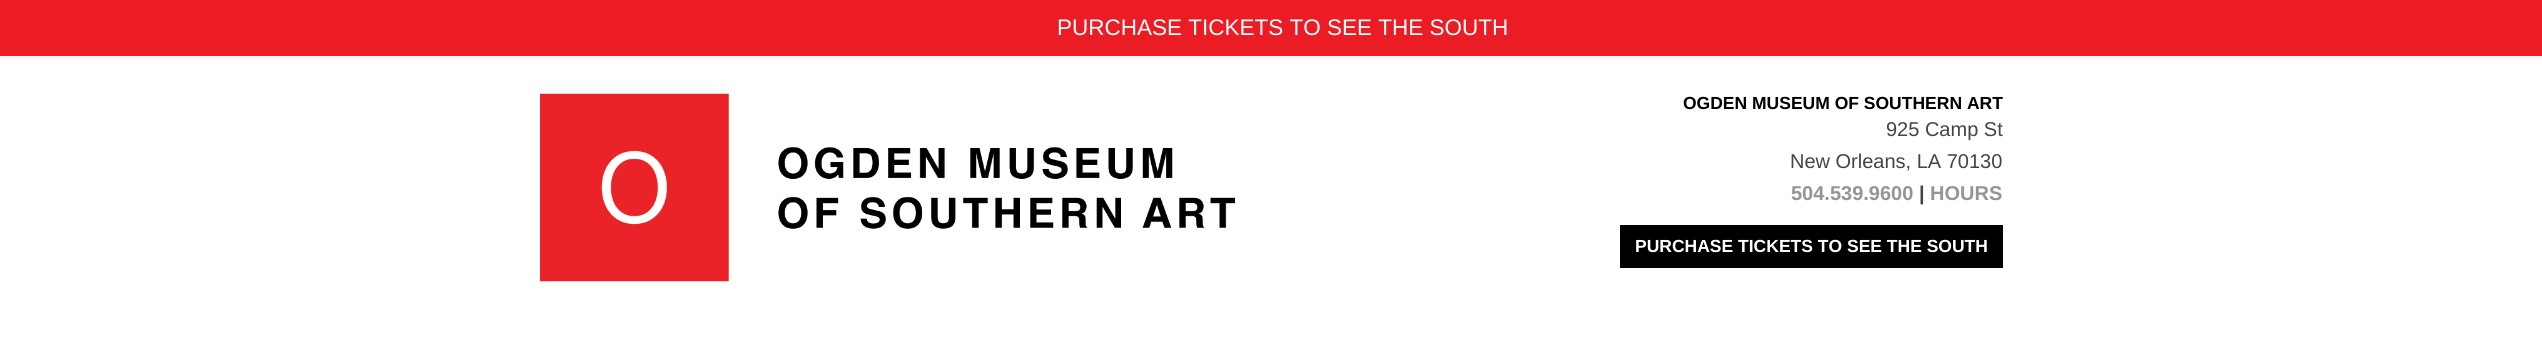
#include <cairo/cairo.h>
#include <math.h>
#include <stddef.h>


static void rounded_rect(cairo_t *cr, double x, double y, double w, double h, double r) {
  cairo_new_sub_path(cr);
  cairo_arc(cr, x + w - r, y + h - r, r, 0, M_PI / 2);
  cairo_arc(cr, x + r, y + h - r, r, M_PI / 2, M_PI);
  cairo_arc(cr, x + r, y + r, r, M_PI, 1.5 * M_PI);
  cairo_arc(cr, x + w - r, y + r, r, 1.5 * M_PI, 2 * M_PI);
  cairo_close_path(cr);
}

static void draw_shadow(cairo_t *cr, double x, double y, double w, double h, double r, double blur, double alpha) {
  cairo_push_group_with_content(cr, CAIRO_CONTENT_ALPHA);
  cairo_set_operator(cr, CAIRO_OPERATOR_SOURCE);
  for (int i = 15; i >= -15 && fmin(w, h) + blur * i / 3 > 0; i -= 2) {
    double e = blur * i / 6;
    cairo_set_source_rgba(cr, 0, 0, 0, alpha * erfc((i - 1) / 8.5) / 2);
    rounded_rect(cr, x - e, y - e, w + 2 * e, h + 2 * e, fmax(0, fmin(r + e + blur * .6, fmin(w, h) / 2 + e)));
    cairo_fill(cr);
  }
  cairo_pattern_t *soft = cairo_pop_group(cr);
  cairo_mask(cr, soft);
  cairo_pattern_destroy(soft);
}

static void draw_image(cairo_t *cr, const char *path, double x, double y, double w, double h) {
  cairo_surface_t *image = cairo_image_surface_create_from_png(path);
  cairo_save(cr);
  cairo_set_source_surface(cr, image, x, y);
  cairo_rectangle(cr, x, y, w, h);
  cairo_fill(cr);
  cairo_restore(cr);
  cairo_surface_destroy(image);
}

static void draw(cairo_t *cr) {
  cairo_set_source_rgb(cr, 1, 1, 1);
  cairo_paint(cr);
  cairo_set_source_rgb(cr, 0, 0, 0);
  draw_shadow(cr, 0, 4, 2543, 56, 0, 2.5, 0.05);
  cairo_set_source_rgb(cr, 236 / 255.0, 28 / 255.0, 36 / 255.0);
  cairo_rectangle(cr, 0, 0, 2542, 56);
  cairo_fill(cr);
  draw_image(cr, "images/1.png", 540, 93, 695, 189);
  cairo_set_source_rgb(cr, 0, 0, 0);
  cairo_rectangle(cr, 1620, 225, 383, 43);
  cairo_fill(cr);
  cairo_select_font_face(cr, "Liberation Sans", CAIRO_FONT_SLANT_NORMAL, CAIRO_FONT_WEIGHT_NORMAL);
  cairo_set_font_size(cr, 22.5);
  cairo_set_source_rgb(cr, 1, 1, 1);
  cairo_move_to(cr, 1057, 35);
  cairo_show_text(cr, "PURCHASE TICKETS TO SEE THE SOUTH");
  cairo_select_font_face(cr, "Liberation Sans", CAIRO_FONT_SLANT_NORMAL, CAIRO_FONT_WEIGHT_BOLD);
  cairo_set_font_size(cr, 17.5);
  cairo_set_source_rgb(cr, 0, 0, 0);
  cairo_move_to(cr, 1683, 109);
  cairo_show_text(cr, "OGDEN MUSEUM OF SOUTHERN ART");
  cairo_select_font_face(cr, "Liberation Sans", CAIRO_FONT_SLANT_NORMAL, CAIRO_FONT_WEIGHT_NORMAL);
  cairo_set_font_size(cr, 20);
  cairo_set_source_rgb(cr, 68 / 255.0, 68 / 255.0, 68 / 255.0);
  cairo_move_to(cr, 1886, 136);
  cairo_show_text(cr, "925 Camp St");
  cairo_move_to(cr, 1790, 168);
  cairo_show_text(cr, "New Orleans, LA 70130");
  cairo_select_font_face(cr, "Liberation Sans", CAIRO_FONT_SLANT_NORMAL, CAIRO_FONT_WEIGHT_BOLD);
  cairo_set_source_rgb(cr, 147 / 255.0, 149 / 255.0, 151 / 255.0);
  cairo_move_to(cr, 1791, 200);
  cairo_show_text(cr, "504.539.9600");
  cairo_set_source_rgb(cr, 68 / 255.0, 68 / 255.0, 68 / 255.0);
  cairo_move_to(cr, 1919, 200);
  cairo_show_text(cr, "|");
  cairo_set_source_rgb(cr, 147 / 255.0, 149 / 255.0, 151 / 255.0);
  cairo_move_to(cr, 1930, 200);
  cairo_show_text(cr, "HOURS");
  cairo_set_font_size(cr, 17.5);
  cairo_set_source_rgb(cr, 1, 1, 1);
  cairo_move_to(cr, 1635, 252);
  cairo_show_text(cr, "PURCHASE TICKETS TO SEE THE SOUTH");
}

int main(void) {
  cairo_surface_t *surface = cairo_image_surface_create(CAIRO_FORMAT_RGB24, 2542, 338);
  cairo_t *cr = cairo_create(surface);
  cairo_font_options_t *options = cairo_font_options_create();
  cairo_font_options_set_hint_metrics(options, CAIRO_HINT_METRICS_OFF);
  cairo_font_options_set_hint_style(options, CAIRO_HINT_STYLE_NONE);
  cairo_set_font_options(cr, options);
  cairo_set_miter_limit(cr, 4);
  draw(cr);
  cairo_surface_write_to_png(surface, "out.png");
  cairo_font_options_destroy(options);
  cairo_destroy(cr);
  cairo_surface_destroy(surface);
  return 0;
}
